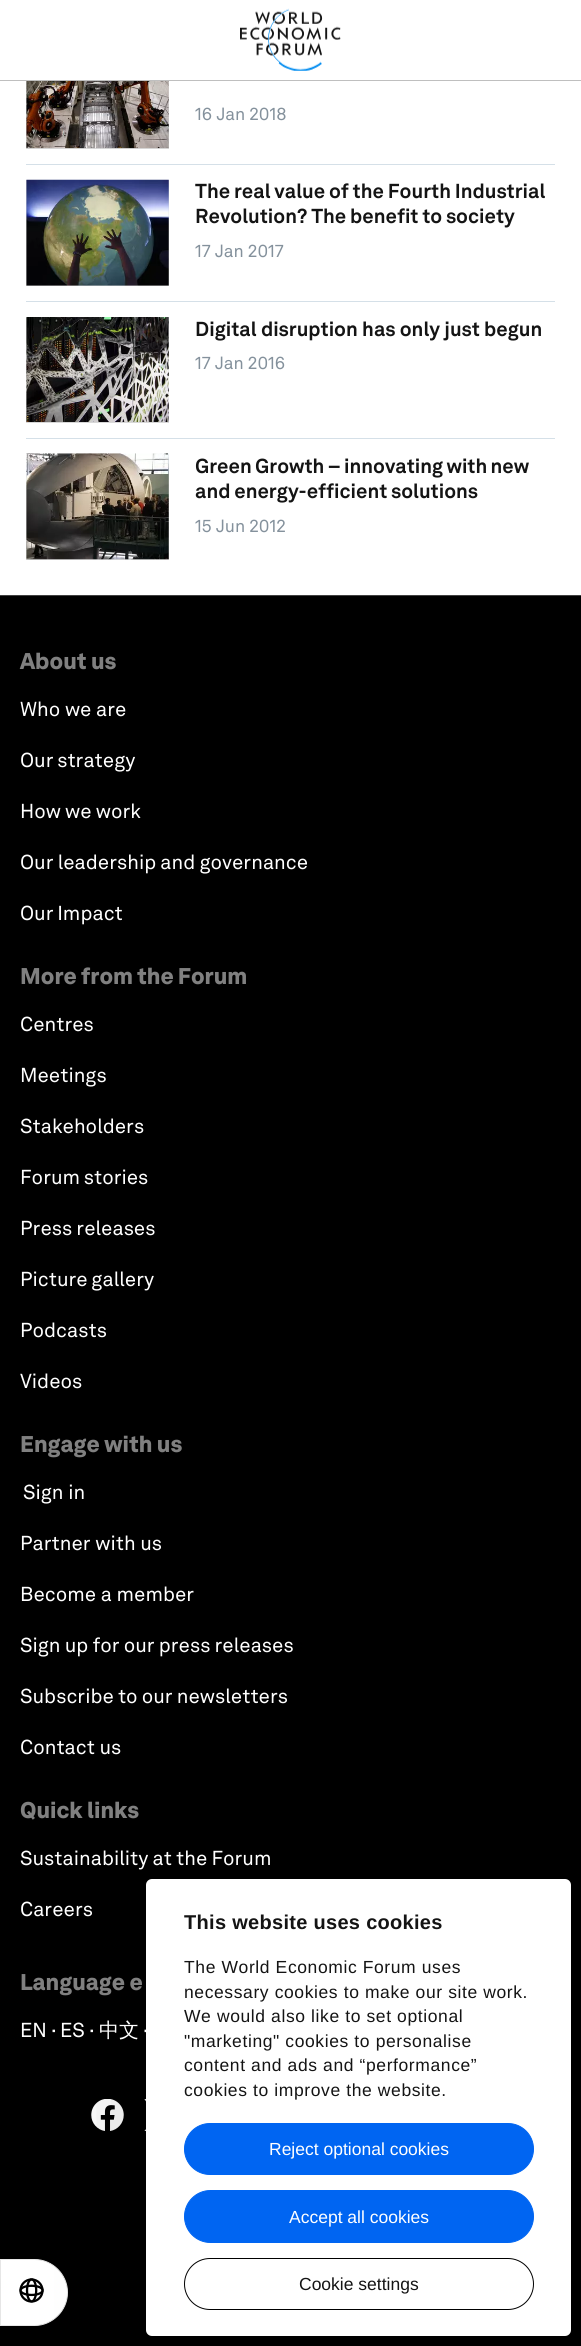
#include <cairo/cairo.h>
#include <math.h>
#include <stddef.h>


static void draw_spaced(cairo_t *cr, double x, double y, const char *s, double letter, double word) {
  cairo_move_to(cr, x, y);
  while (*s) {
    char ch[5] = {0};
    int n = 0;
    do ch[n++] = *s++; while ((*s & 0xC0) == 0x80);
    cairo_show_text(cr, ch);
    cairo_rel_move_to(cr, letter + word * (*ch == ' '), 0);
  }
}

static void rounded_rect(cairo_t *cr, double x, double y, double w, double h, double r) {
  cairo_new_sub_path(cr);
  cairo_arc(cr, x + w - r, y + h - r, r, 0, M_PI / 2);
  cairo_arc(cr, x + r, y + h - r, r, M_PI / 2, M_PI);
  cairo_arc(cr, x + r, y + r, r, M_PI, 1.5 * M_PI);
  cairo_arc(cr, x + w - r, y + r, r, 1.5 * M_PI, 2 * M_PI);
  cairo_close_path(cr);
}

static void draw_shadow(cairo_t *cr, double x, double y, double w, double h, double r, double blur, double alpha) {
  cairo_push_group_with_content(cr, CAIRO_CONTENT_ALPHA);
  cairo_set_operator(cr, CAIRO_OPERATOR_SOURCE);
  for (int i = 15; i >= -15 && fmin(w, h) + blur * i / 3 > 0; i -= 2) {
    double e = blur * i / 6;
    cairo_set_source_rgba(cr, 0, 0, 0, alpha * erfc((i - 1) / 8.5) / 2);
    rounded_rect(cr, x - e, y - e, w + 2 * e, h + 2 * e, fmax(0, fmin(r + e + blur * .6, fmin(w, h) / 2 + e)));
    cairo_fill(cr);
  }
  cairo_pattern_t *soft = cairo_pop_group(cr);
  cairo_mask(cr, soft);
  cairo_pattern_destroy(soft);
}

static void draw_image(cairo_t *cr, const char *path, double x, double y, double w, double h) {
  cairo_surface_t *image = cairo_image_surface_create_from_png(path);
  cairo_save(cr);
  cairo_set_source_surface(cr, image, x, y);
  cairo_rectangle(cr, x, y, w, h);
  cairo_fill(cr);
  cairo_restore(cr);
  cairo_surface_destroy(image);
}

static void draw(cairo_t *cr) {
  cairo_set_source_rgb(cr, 1, 1, 1);
  cairo_paint(cr);
  cairo_set_source_rgb(cr, 191 / 255.0, 191 / 255.0, 191 / 255.0);
  cairo_rectangle(cr, 0, 80, 581, 1);
  cairo_fill(cr);
  draw_image(cr, "images/1.png", 240, 8, 101, 63);
  cairo_set_source_rgb(cr, 213 / 255.0, 224 / 255.0, 232 / 255.0);
  cairo_rectangle(cr, 26, 164, 529, 1);
  cairo_fill(cr);
  cairo_set_source_rgb(cr, 216 / 255.0, 216 / 255.0, 216 / 255.0);
  cairo_rectangle(cr, 26, 81, 143, 68);
  cairo_fill(cr);
  draw_image(cr, "images/2.png", 26, 81, 143, 68);
  cairo_set_source_rgb(cr, 213 / 255.0, 224 / 255.0, 232 / 255.0);
  cairo_rectangle(cr, 26, 301, 529, 1);
  cairo_fill(cr);
  cairo_set_source_rgb(cr, 216 / 255.0, 216 / 255.0, 216 / 255.0);
  cairo_rectangle(cr, 26, 180, 143, 106);
  cairo_fill(cr);
  draw_image(cr, "images/3.png", 26, 179, 143, 107);
  cairo_set_source_rgb(cr, 213 / 255.0, 224 / 255.0, 232 / 255.0);
  cairo_rectangle(cr, 26, 438, 529, 1);
  cairo_fill(cr);
  cairo_set_source_rgb(cr, 216 / 255.0, 216 / 255.0, 216 / 255.0);
  cairo_rectangle(cr, 26, 318, 143, 105);
  cairo_fill(cr);
  draw_image(cr, "images/4.png", 26, 317, 143, 105);
  cairo_rectangle(cr, 26, 454, 143, 106);
  cairo_fill(cr);
  draw_image(cr, "images/5.png", 26, 453, 143, 107);
  cairo_set_source_rgb(cr, 0, 0, 0);
  cairo_rectangle(cr, 0, 596, 581, 1750);
  cairo_fill(cr);
  cairo_set_source_rgb(cr, 64 / 255.0, 64 / 255.0, 64 / 255.0);
  cairo_rectangle(cr, 0, 595, 581, 1);
  cairo_fill(cr);
  draw_image(cr, "images/6.png", 91, 2099, 33, 32);
  draw_image(cr, "images/7.png", 144, 2099, 2, 32);
  cairo_set_source_rgb(cr, 1, 1, 1);
  cairo_new_path(cr);
  cairo_move_to(cr, 0.5, 2259.5);
  cairo_line_to(cr, 34.5, 2259.5);
  cairo_curve_to(cr, 52.5, 2259.5, 67.5, 2274.5, 67.5, 2292.5);
  cairo_curve_to(cr, 67.5, 2310.5, 52.5, 2325.5, 34.5, 2325.5);
  cairo_line_to(cr, 0.5, 2325.5);
  cairo_close_path(cr);
  cairo_fill_preserve(cr);
  cairo_set_source_rgb(cr, 230 / 255.0, 230 / 255.0, 230 / 255.0);
  cairo_set_line_width(cr, 1);
  cairo_stroke(cr);
  draw_image(cr, "images/8.png", 19, 2278, 25, 25);
  cairo_set_source_rgb(cr, 0, 0, 0);
  draw_shadow(cr, 146, 1919, 425, 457, 6, 42.5, 0.3);
  cairo_set_source_rgb(cr, 1, 1, 1);
  rounded_rect(cr, 146, 1879, 425, 457, 6);
  cairo_fill(cr);
  cairo_set_source_rgb(cr, 0, 101 / 255.0, 242 / 255.0);
  rounded_rect(cr, 184.5, 2123.5, 349, 51, 25.5);
  cairo_fill_preserve(cr);
  cairo_stroke(cr);
  rounded_rect(cr, 184.5, 2190.5, 349, 52, 26);
  cairo_fill_preserve(cr);
  cairo_stroke(cr);
  rounded_rect(cr, 184.5, 2258.5, 349, 51, 25.5);
  cairo_set_source_rgb(cr, 0, 0, 0);
  cairo_stroke(cr);
  cairo_select_font_face(cr, "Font", CAIRO_FONT_SLANT_NORMAL, CAIRO_FONT_WEIGHT_NORMAL);
  cairo_set_font_size(cr, 17.5);
  cairo_set_source_rgb(cr, 132 / 255.0, 145 / 255.0, 156 / 255.0);
  cairo_move_to(cr, 195, 120);
  cairo_show_text(cr, "16 Jan 2018");
  cairo_select_font_face(cr, "Font", CAIRO_FONT_SLANT_NORMAL, CAIRO_FONT_WEIGHT_BOLD);
  cairo_set_font_size(cr, 20);
  cairo_set_source_rgb(cr, 20 / 255.0, 20 / 255.0, 20 / 255.0);
  draw_spaced(cr, 195, 198, "The real value of the Fourth Industrial", 0, -0.5);
  draw_spaced(cr, 195, 223, "Revolution? The benefit to society", 0, -0.5);
  cairo_select_font_face(cr, "Font", CAIRO_FONT_SLANT_NORMAL, CAIRO_FONT_WEIGHT_NORMAL);
  cairo_set_font_size(cr, 17.5);
  cairo_set_source_rgb(cr, 132 / 255.0, 145 / 255.0, 156 / 255.0);
  cairo_move_to(cr, 195, 257);
  cairo_show_text(cr, "17 Jan 2017");
  cairo_select_font_face(cr, "Font", CAIRO_FONT_SLANT_NORMAL, CAIRO_FONT_WEIGHT_BOLD);
  cairo_set_font_size(cr, 20);
  cairo_set_source_rgb(cr, 20 / 255.0, 20 / 255.0, 20 / 255.0);
  cairo_move_to(cr, 195, 336);
  cairo_show_text(cr, "Digital disruption has only just begun");
  cairo_select_font_face(cr, "Font", CAIRO_FONT_SLANT_NORMAL, CAIRO_FONT_WEIGHT_NORMAL);
  cairo_set_font_size(cr, 17.5);
  cairo_set_source_rgb(cr, 132 / 255.0, 145 / 255.0, 156 / 255.0);
  cairo_move_to(cr, 195, 369);
  cairo_show_text(cr, "17 Jan 2016");
  cairo_select_font_face(cr, "Font", CAIRO_FONT_SLANT_NORMAL, CAIRO_FONT_WEIGHT_BOLD);
  cairo_set_font_size(cr, 20);
  cairo_set_source_rgb(cr, 20 / 255.0, 20 / 255.0, 20 / 255.0);
  draw_spaced(cr, 195, 473, "Green Growth – innovating with new", 0, -1);
  draw_spaced(cr, 195, 498, "and energy-efficient solutions", 0, -0.5);
  cairo_select_font_face(cr, "Font", CAIRO_FONT_SLANT_NORMAL, CAIRO_FONT_WEIGHT_NORMAL);
  cairo_set_font_size(cr, 17.5);
  cairo_set_source_rgb(cr, 132 / 255.0, 145 / 255.0, 156 / 255.0);
  cairo_move_to(cr, 195, 532);
  cairo_show_text(cr, "15 Jun 2012");
  cairo_select_font_face(cr, "Font Black", CAIRO_FONT_SLANT_NORMAL, CAIRO_FONT_WEIGHT_NORMAL);
  cairo_set_font_size(cr, 22.5);
  cairo_set_source_rgb(cr, 128 / 255.0, 128 / 255.0, 128 / 255.0);
  cairo_move_to(cr, 20, 669);
  cairo_show_text(cr, "About us");
  cairo_select_font_face(cr, "Font", CAIRO_FONT_SLANT_NORMAL, CAIRO_FONT_WEIGHT_NORMAL);
  cairo_set_font_size(cr, 20);
  cairo_set_source_rgb(cr, 1, 1, 1);
  cairo_move_to(cr, 20, 716);
  cairo_show_text(cr, "Who we are");
  draw_spaced(cr, 20, 767, "Our strategy", 0, -1);
  draw_spaced(cr, 20, 818, "How we work", 0, -0.5);
  draw_spaced(cr, 20, 869, "Our leadership and governance", 0, -0.5);
  draw_spaced(cr, 20, 920, "Our Impact", 0, -1);
  cairo_select_font_face(cr, "Font Black", CAIRO_FONT_SLANT_NORMAL, CAIRO_FONT_WEIGHT_NORMAL);
  cairo_set_font_size(cr, 22.5);
  cairo_set_source_rgb(cr, 128 / 255.0, 128 / 255.0, 128 / 255.0);
  draw_spaced(cr, 20, 984, "More from the Forum", 0, -0.5);
  cairo_select_font_face(cr, "Font", CAIRO_FONT_SLANT_NORMAL, CAIRO_FONT_WEIGHT_NORMAL);
  cairo_set_font_size(cr, 20);
  cairo_set_source_rgb(cr, 1, 1, 1);
  cairo_move_to(cr, 20, 1031);
  cairo_show_text(cr, "Centres");
  cairo_move_to(cr, 20, 1082);
  cairo_show_text(cr, "Meetings");
  cairo_move_to(cr, 20, 1133);
  cairo_show_text(cr, "Stakeholders");
  draw_spaced(cr, 20, 1184, "Forum stories", 0, -1);
  draw_spaced(cr, 20, 1235, "Press releases", 0, -0.5);
  draw_spaced(cr, 20, 1286, "Picture gallery", 0, -1);
  cairo_move_to(cr, 20, 1337);
  cairo_show_text(cr, "Podcasts");
  cairo_move_to(cr, 20, 1388);
  cairo_show_text(cr, "Videos");
  cairo_select_font_face(cr, "Font Black", CAIRO_FONT_SLANT_NORMAL, CAIRO_FONT_WEIGHT_NORMAL);
  cairo_set_font_size(cr, 22.5);
  cairo_set_source_rgb(cr, 128 / 255.0, 128 / 255.0, 128 / 255.0);
  cairo_move_to(cr, 20, 1452);
  cairo_show_text(cr, "Engage with us");
  cairo_select_font_face(cr, "Font", CAIRO_FONT_SLANT_NORMAL, CAIRO_FONT_WEIGHT_NORMAL);
  cairo_set_font_size(cr, 20);
  cairo_set_source_rgb(cr, 1, 1, 1);
  cairo_move_to(cr, 23, 1499);
  cairo_show_text(cr, "Sign in");
  cairo_move_to(cr, 20, 1550);
  cairo_show_text(cr, "Partner with us");
  cairo_move_to(cr, 20, 1601);
  cairo_show_text(cr, "Become a member");
  draw_spaced(cr, 20, 1652, "Sign up for our press releases", 0, -0.5);
  draw_spaced(cr, 20, 1703, "Subscribe to our newsletters", 0, -0.5);
  cairo_move_to(cr, 20, 1754);
  cairo_show_text(cr, "Contact us");
  cairo_select_font_face(cr, "Font Black", CAIRO_FONT_SLANT_NORMAL, CAIRO_FONT_WEIGHT_NORMAL);
  cairo_set_font_size(cr, 22.5);
  cairo_set_source_rgb(cr, 128 / 255.0, 128 / 255.0, 128 / 255.0);
  cairo_move_to(cr, 20, 1818);
  cairo_show_text(cr, "Quick links");
  cairo_select_font_face(cr, "Font", CAIRO_FONT_SLANT_NORMAL, CAIRO_FONT_WEIGHT_NORMAL);
  cairo_set_font_size(cr, 20);
  cairo_set_source_rgb(cr, 1, 1, 1);
  draw_spaced(cr, 20, 1865, "Sustainability at the Forum", 0, -0.5);
  cairo_move_to(cr, 20, 1916);
  cairo_show_text(cr, "Careers");
  cairo_select_font_face(cr, "Font Black", CAIRO_FONT_SLANT_NORMAL, CAIRO_FONT_WEIGHT_NORMAL);
  cairo_set_font_size(cr, 22.5);
  cairo_set_source_rgb(cr, 128 / 255.0, 128 / 255.0, 128 / 255.0);
  cairo_move_to(cr, 20, 1990);
  cairo_show_text(cr, "Language e");
  cairo_select_font_face(cr, "Font", CAIRO_FONT_SLANT_NORMAL, CAIRO_FONT_WEIGHT_NORMAL);
  cairo_set_font_size(cr, 20);
  cairo_set_source_rgb(cr, 1, 1, 1);
  cairo_move_to(cr, 20, 2037);
  cairo_show_text(cr, "EN");
  cairo_select_font_face(cr, "Liberation Sans", CAIRO_FONT_SLANT_NORMAL, CAIRO_FONT_WEIGHT_NORMAL);
  cairo_set_font_size(cr, 10);
  cairo_move_to(cr, 52, 2034);
  cairo_show_text(cr, "▪");
  cairo_select_font_face(cr, "Font", CAIRO_FONT_SLANT_NORMAL, CAIRO_FONT_WEIGHT_NORMAL);
  cairo_set_font_size(cr, 20);
  cairo_move_to(cr, 60, 2037);
  cairo_show_text(cr, "ES");
  cairo_select_font_face(cr, "Liberation Sans", CAIRO_FONT_SLANT_NORMAL, CAIRO_FONT_WEIGHT_NORMAL);
  cairo_set_font_size(cr, 10);
  cairo_move_to(cr, 90, 2034);
  cairo_show_text(cr, "▪");
  cairo_select_font_face(cr, "WenQuanYi Zen Hei Medium", CAIRO_FONT_SLANT_NORMAL, CAIRO_FONT_WEIGHT_NORMAL);
  cairo_set_font_size(cr, 20);
  cairo_move_to(cr, 99, 2037);
  cairo_show_text(cr, "中文");
  cairo_select_font_face(cr, "Liberation Sans", CAIRO_FONT_SLANT_NORMAL, CAIRO_FONT_WEIGHT_NORMAL);
  cairo_set_font_size(cr, 10);
  cairo_move_to(cr, 144, 2034);
  cairo_show_text(cr, "▪");
  cairo_select_font_face(cr, "Liberation Sans", CAIRO_FONT_SLANT_NORMAL, CAIRO_FONT_WEIGHT_BOLD);
  cairo_set_font_size(cr, 20);
  cairo_set_source_rgb(cr, 20 / 255.0, 20 / 255.0, 20 / 255.0);
  draw_spaced(cr, 184, 1929, "This website uses cookies", 0.3, 0);
  cairo_select_font_face(cr, "Liberation Sans", CAIRO_FONT_SLANT_NORMAL, CAIRO_FONT_WEIGHT_NORMAL);
  cairo_set_font_size(cr, 17.5);
  draw_spaced(cr, 184, 1973, "The World Economic Forum uses", 0.6, 0);
  draw_spaced(cr, 184, 1998, "necessary cookies to make our site work.", 0.6, 0);
  draw_spaced(cr, 184, 2022, "We would also like to set optional", 0.6, 0);
  draw_spaced(cr, 184, 2047, "\"marketing\" cookies to personalise", 0.6, 0);
  draw_spaced(cr, 184, 2071, "content and ads and “performance”", 0.6, 0);
  draw_spaced(cr, 184, 2096, "cookies to improve the website.", 0.6, 0);
  cairo_set_source_rgb(cr, 1, 1, 1);
  cairo_move_to(cr, 269, 2155);
  cairo_show_text(cr, "Reject optional cookies");
  cairo_move_to(cr, 289, 2223);
  cairo_show_text(cr, "Accept all cookies");
  cairo_set_source_rgb(cr, 20 / 255.0, 20 / 255.0, 20 / 255.0);
  cairo_move_to(cr, 299, 2290);
  cairo_show_text(cr, "Cookie settings");
}

int main(void) {
  cairo_surface_t *surface = cairo_image_surface_create(CAIRO_FORMAT_RGB24, 581, 2346);
  cairo_t *cr = cairo_create(surface);
  cairo_font_options_t *options = cairo_font_options_create();
  cairo_font_options_set_hint_metrics(options, CAIRO_HINT_METRICS_OFF);
  cairo_font_options_set_hint_style(options, CAIRO_HINT_STYLE_NONE);
  cairo_set_font_options(cr, options);
  cairo_set_miter_limit(cr, 4);
  draw(cr);
  cairo_surface_write_to_png(surface, "out.png");
  cairo_font_options_destroy(options);
  cairo_destroy(cr);
  cairo_surface_destroy(surface);
  return 0;
}
